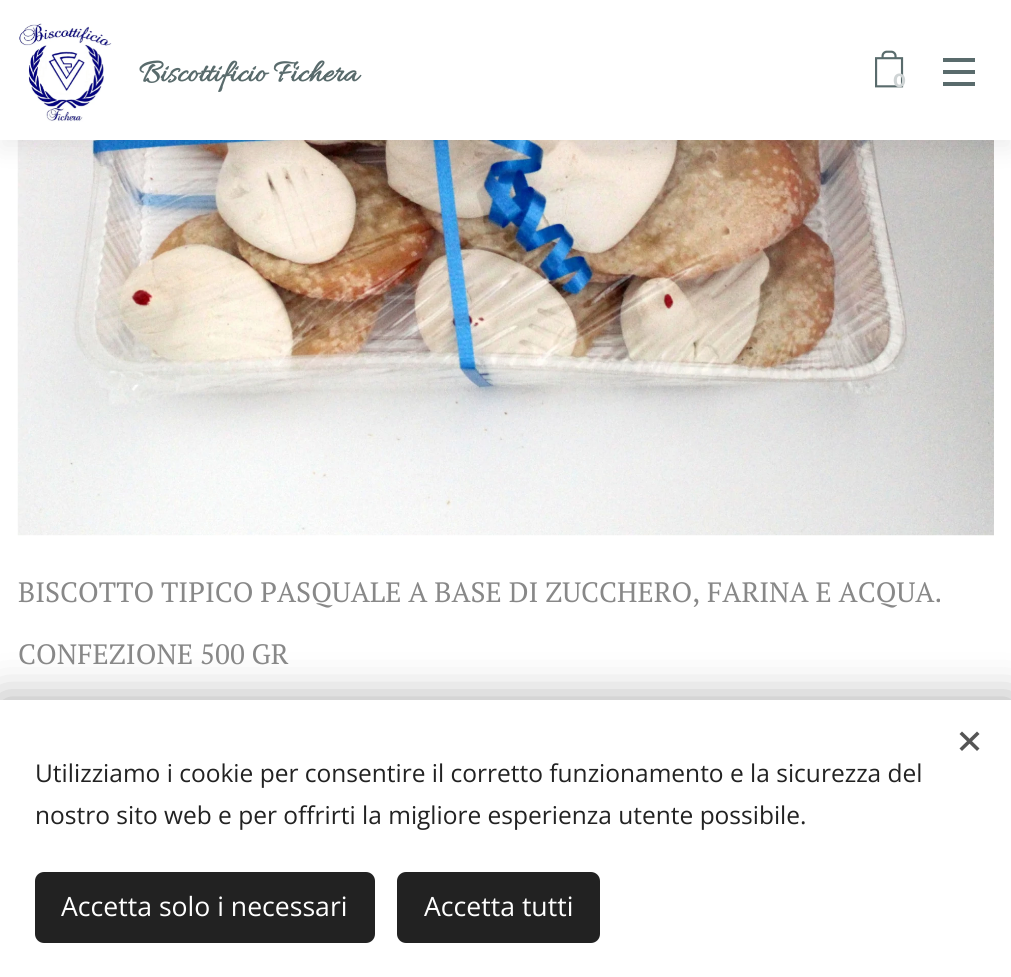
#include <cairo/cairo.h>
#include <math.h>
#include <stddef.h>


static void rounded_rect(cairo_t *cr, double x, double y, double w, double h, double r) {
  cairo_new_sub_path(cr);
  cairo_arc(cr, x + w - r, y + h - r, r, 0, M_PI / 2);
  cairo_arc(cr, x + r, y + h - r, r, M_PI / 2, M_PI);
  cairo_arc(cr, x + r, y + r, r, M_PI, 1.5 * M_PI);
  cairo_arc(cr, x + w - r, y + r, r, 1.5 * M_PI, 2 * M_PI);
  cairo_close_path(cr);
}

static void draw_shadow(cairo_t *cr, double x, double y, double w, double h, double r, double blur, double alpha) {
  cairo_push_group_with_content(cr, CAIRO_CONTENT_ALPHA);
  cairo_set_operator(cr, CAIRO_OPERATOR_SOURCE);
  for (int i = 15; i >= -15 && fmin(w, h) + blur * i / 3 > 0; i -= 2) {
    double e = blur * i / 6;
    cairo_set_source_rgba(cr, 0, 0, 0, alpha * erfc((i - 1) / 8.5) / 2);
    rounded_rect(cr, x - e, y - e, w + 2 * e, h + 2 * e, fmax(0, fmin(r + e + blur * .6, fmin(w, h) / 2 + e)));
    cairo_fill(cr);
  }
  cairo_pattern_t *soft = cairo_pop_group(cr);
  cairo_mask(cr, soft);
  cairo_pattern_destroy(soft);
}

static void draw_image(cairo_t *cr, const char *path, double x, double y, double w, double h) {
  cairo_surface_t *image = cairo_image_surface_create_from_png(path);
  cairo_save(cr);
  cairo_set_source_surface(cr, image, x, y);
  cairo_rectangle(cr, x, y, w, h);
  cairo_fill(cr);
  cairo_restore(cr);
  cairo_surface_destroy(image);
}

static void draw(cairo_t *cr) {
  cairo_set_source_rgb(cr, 1, 1, 1);
  cairo_paint(cr);
  draw_image(cr, "images/3.png", 17, 140, 977, 396);
  cairo_set_source_rgb(cr, 0, 0, 0);
  draw_shadow(cr, 0, 9, 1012, 140, 0, 13, 0.07);
  cairo_set_source_rgb(cr, 1, 1, 1);
  cairo_rectangle(cr, 0, 0, 1011, 140);
  cairo_fill(cr);
  draw_image(cr, "images/1.png", 19, 23, 93, 99);
  draw_image(cr, "images/2.png", 875, 50, 29, 38);
  cairo_set_source_rgb(cr, 89 / 255.0, 107 / 255.0, 108 / 255.0);
  cairo_rectangle(cr, 943, 70, 32, 4);
  cairo_fill(cr);
  cairo_rectangle(cr, 943, 58, 32, 4);
  cairo_fill(cr);
  cairo_rectangle(cr, 943, 82, 32, 4);
  cairo_fill(cr);
  cairo_set_source_rgb(cr, 0, 0, 0);
  draw_shadow(cr, 0, 700, 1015, 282, 0, 22, 0.33);
  cairo_set_source_rgb(cr, 1, 1, 1);
  cairo_rectangle(cr, 0, 700, 1011, 277);
  cairo_fill(cr);
  cairo_set_source_rgb(cr, 85 / 255.0, 85 / 255.0, 85 / 255.0);
  cairo_new_path(cr);
  cairo_move_to(cr, 959.5, 748.5);
  cairo_line_to(cr, 977, 731.5);
  cairo_line_to(cr, 979.5, 734);
  cairo_line_to(cr, 962, 751);
  cairo_close_path(cr);
  cairo_fill(cr);
  cairo_new_path(cr);
  cairo_move_to(cr, 962, 731.5);
  cairo_line_to(cr, 979.5, 748.5);
  cairo_line_to(cr, 977, 751);
  cairo_line_to(cr, 959.5, 734);
  cairo_close_path(cr);
  cairo_fill(cr);
  cairo_set_source_rgb(cr, 34 / 255.0, 34 / 255.0, 34 / 255.0);
  rounded_rect(cr, 35, 872, 340, 71, 9);
  cairo_fill(cr);
  rounded_rect(cr, 397, 872, 203, 71, 9);
  cairo_fill(cr);
  cairo_select_font_face(cr, "Allura", CAIRO_FONT_SLANT_NORMAL, CAIRO_FONT_WEIGHT_BOLD);
  cairo_set_font_size(cr, 32.5);
  cairo_set_source_rgb(cr, 89 / 255.0, 107 / 255.0, 108 / 255.0);
  cairo_move_to(cr, 139, 81);
  cairo_show_text(cr, "Biscottificio Fichera");
  cairo_select_font_face(cr, "Montserrat", CAIRO_FONT_SLANT_NORMAL, CAIRO_FONT_WEIGHT_BOLD);
  cairo_set_font_size(cr, 19);
  cairo_set_source_rgb(cr, 207 / 255.0, 212 / 255.0, 213 / 255.0);
  cairo_move_to(cr, 893, 87);
  cairo_show_text(cr, "0");
  cairo_select_font_face(cr, "PT Serif", CAIRO_FONT_SLANT_NORMAL, CAIRO_FONT_WEIGHT_NORMAL);
  cairo_set_font_size(cr, 28);
  cairo_set_source_rgb(cr, 136 / 255.0, 136 / 255.0, 136 / 255.0);
  cairo_move_to(cr, 18, 602);
  cairo_show_text(cr, "BISCOTTO TIPICO PASQUALE A BASE DI ZUCCHERO, FARINA E ACQUA.");
  cairo_move_to(cr, 18, 664);
  cairo_show_text(cr, "CONFEZIONE 500 GR");
  cairo_select_font_face(cr, "Open Sans", CAIRO_FONT_SLANT_NORMAL, CAIRO_FONT_WEIGHT_NORMAL);
  cairo_set_font_size(cr, 24.5);
  cairo_set_source_rgb(cr, 34 / 255.0, 34 / 255.0, 34 / 255.0);
  cairo_move_to(cr, 35, 782);
  cairo_show_text(cr, "Utilizziamo i cookie per consentire il corretto funzionamento e la sicurezza del");
  cairo_move_to(cr, 35, 824);
  cairo_show_text(cr, "nostro sito web e per offrirti la migliore esperienza utente possibile.");
  cairo_set_font_size(cr, 26.6);
  cairo_set_source_rgb(cr, 1, 1, 1);
  cairo_move_to(cr, 61, 916);
  cairo_show_text(cr, "Accetta solo i necessari");
  cairo_move_to(cr, 424, 916);
  cairo_show_text(cr, "Accetta tutti");
}

int main(void) {
  cairo_surface_t *surface = cairo_image_surface_create(CAIRO_FORMAT_RGB24, 1011, 977);
  cairo_t *cr = cairo_create(surface);
  cairo_font_options_t *options = cairo_font_options_create();
  cairo_font_options_set_hint_metrics(options, CAIRO_HINT_METRICS_OFF);
  cairo_font_options_set_hint_style(options, CAIRO_HINT_STYLE_NONE);
  cairo_set_font_options(cr, options);
  cairo_set_miter_limit(cr, 4);
  draw(cr);
  cairo_surface_write_to_png(surface, "out.png");
  cairo_font_options_destroy(options);
  cairo_destroy(cr);
  cairo_surface_destroy(surface);
  return 0;
}
